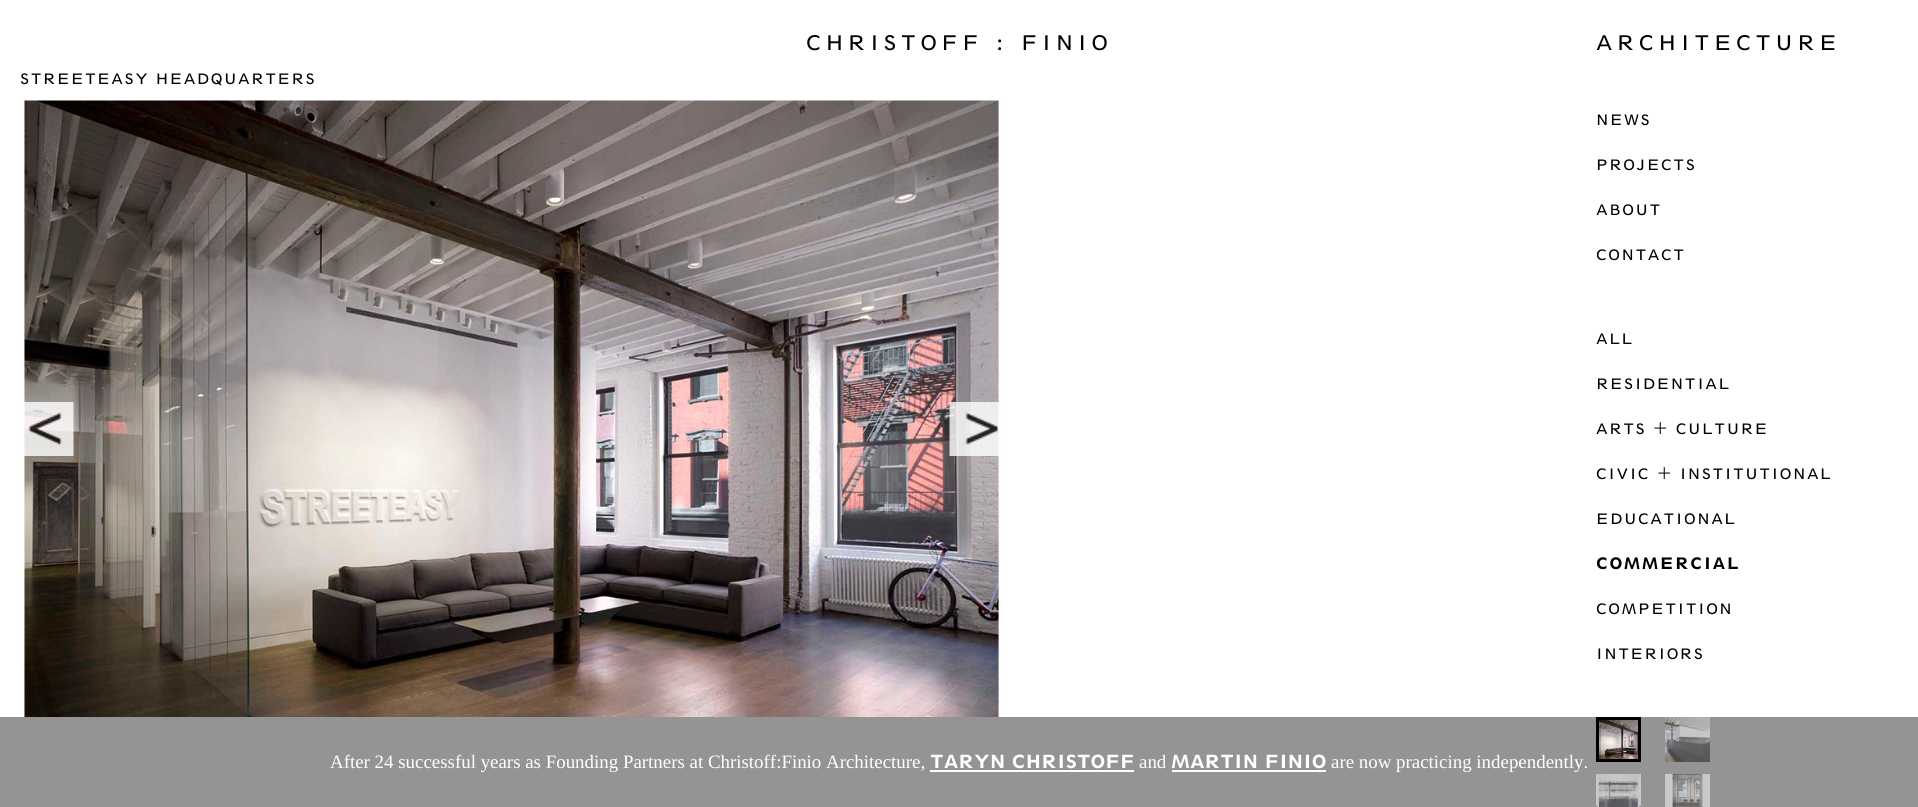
#include <cairo/cairo.h>
#include <math.h>
#include <stddef.h>


static void draw_spaced(cairo_t *cr, double x, double y, const char *s, double letter, double word) {
  cairo_move_to(cr, x, y);
  while (*s) {
    char ch[5] = {0};
    int n = 0;
    do ch[n++] = *s++; while ((*s & 0xC0) == 0x80);
    cairo_show_text(cr, ch);
    cairo_rel_move_to(cr, letter + word * (*ch == ' '), 0);
  }
}

static void draw_image(cairo_t *cr, const char *path, double x, double y, double w, double h) {
  cairo_surface_t *image = cairo_image_surface_create_from_png(path);
  cairo_save(cr);
  cairo_set_source_surface(cr, image, x, y);
  cairo_rectangle(cr, x, y, w, h);
  cairo_fill(cr);
  cairo_restore(cr);
  cairo_surface_destroy(image);
}

static void draw(cairo_t *cr) {
  cairo_set_source_rgb(cr, 1, 1, 1);
  cairo_paint(cr);
  cairo_set_source_rgb(cr, 148 / 255.0, 148 / 255.0, 148 / 255.0);
  cairo_rectangle(cr, 0, 717, 1918, 90);
  cairo_fill(cr);
  draw_image(cr, "images/1.png", 1599, 720, 39, 39);
  cairo_rectangle(cr, 1597.5, 718.5, 42, 42);
  cairo_set_source_rgb(cr, 0, 0, 0);
  cairo_set_line_width(cr, 3);
  cairo_stroke(cr);
  draw_image(cr, "images/2.png", 1596, 774, 45, 33);
  draw_image(cr, "images/3.png", 1665, 717, 45, 45);
  draw_image(cr, "images/4.png", 1665, 774, 45, 33);
  draw_image(cr, "images/5.png", 19, 100, 985, 617);
  draw_image(cr, "images/6.png", 20, 402, 54, 54);
  draw_image(cr, "images/7.png", 949, 402, 52, 54);
  cairo_set_source_rgb(cr, 1, 1, 1);
  cairo_rectangle(cr, 930, 770, 204, 2);
  cairo_fill(cr);
  cairo_rectangle(cr, 1172, 770, 154, 2);
  cairo_fill(cr);
  cairo_select_font_face(cr, "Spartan", CAIRO_FONT_SLANT_NORMAL, CAIRO_FONT_WEIGHT_NORMAL);
  cairo_set_font_size(cr, 21);
  cairo_set_source_rgb(cr, 0, 0, 0);
  draw_spaced(cr, 806, 50, "CHRISTOFF : FINIO", 4.5, 0);
  draw_spaced(cr, 1596, 50, "ARCHITECTURE", 4.5, 0);
  cairo_set_font_size(cr, 15);
  draw_spaced(cr, 1596, 125, "NEWS", 1.5, 0);
  draw_spaced(cr, 1596, 170, "PROJECTS", 1.5, 0);
  draw_spaced(cr, 1596, 215, "ABOUT", 1.5, 0);
  draw_spaced(cr, 1596, 260, "CONTACT", 1.5, 0);
  draw_spaced(cr, 1596, 344, "ALL", 1.5, 0);
  draw_spaced(cr, 1596, 389, "RESIDENTIAL", 1.5, 0);
  draw_spaced(cr, 1596, 434, "ARTS + CULTURE", 1.5, 0);
  draw_spaced(cr, 1596, 479, "CIVIC + INSTITUTIONAL", 1.5, 0);
  draw_spaced(cr, 1596, 524, "EDUCATIONAL", 1.5, 0);
  cairo_select_font_face(cr, "Spartan Black", CAIRO_FONT_SLANT_NORMAL, CAIRO_FONT_WEIGHT_NORMAL);
  cairo_set_font_size(cr, 16.5);
  draw_spaced(cr, 1596, 569, "COMMERCIAL", 1.5, 0);
  cairo_select_font_face(cr, "Spartan", CAIRO_FONT_SLANT_NORMAL, CAIRO_FONT_WEIGHT_NORMAL);
  cairo_set_font_size(cr, 15);
  draw_spaced(cr, 1596, 614, "COMPETITION", 1.5, 0);
  draw_spaced(cr, 1596, 659, "INTERIORS", 1.5, 0);
  draw_spaced(cr, 20, 84, "STREETEASY HEADQUARTERS", 1.5, 0);
  cairo_select_font_face(cr, "Liberation Serif", CAIRO_FONT_SLANT_NORMAL, CAIRO_FONT_WEIGHT_NORMAL);
  cairo_set_font_size(cr, 18.9);
  cairo_set_source_rgb(cr, 1, 1, 1);
  cairo_move_to(cr, 330, 768);
  cairo_show_text(cr, "After 24 successful years as Founding Partners at Christoff:Finio Architecture,");
  cairo_select_font_face(cr, "Spartan Black", CAIRO_FONT_SLANT_NORMAL, CAIRO_FONT_WEIGHT_NORMAL);
  cairo_move_to(cr, 930, 768);
  cairo_show_text(cr, "TARYN CHRISTOFF");
  cairo_select_font_face(cr, "Liberation Serif", CAIRO_FONT_SLANT_NORMAL, CAIRO_FONT_WEIGHT_NORMAL);
  cairo_move_to(cr, 1139, 768);
  cairo_show_text(cr, "and");
  cairo_select_font_face(cr, "Spartan Black", CAIRO_FONT_SLANT_NORMAL, CAIRO_FONT_WEIGHT_NORMAL);
  cairo_move_to(cr, 1171, 768);
  cairo_show_text(cr, "MARTIN FINIO");
  cairo_select_font_face(cr, "Liberation Serif", CAIRO_FONT_SLANT_NORMAL, CAIRO_FONT_WEIGHT_NORMAL);
  cairo_move_to(cr, 1331, 768);
  cairo_show_text(cr, "are now practicing independently.");
}

int main(void) {
  cairo_surface_t *surface = cairo_image_surface_create(CAIRO_FORMAT_RGB24, 1918, 807);
  cairo_t *cr = cairo_create(surface);
  cairo_font_options_t *options = cairo_font_options_create();
  cairo_font_options_set_hint_metrics(options, CAIRO_HINT_METRICS_OFF);
  cairo_font_options_set_hint_style(options, CAIRO_HINT_STYLE_NONE);
  cairo_set_font_options(cr, options);
  cairo_set_miter_limit(cr, 4);
  draw(cr);
  cairo_surface_write_to_png(surface, "out.png");
  cairo_font_options_destroy(options);
  cairo_destroy(cr);
  cairo_surface_destroy(surface);
  return 0;
}
